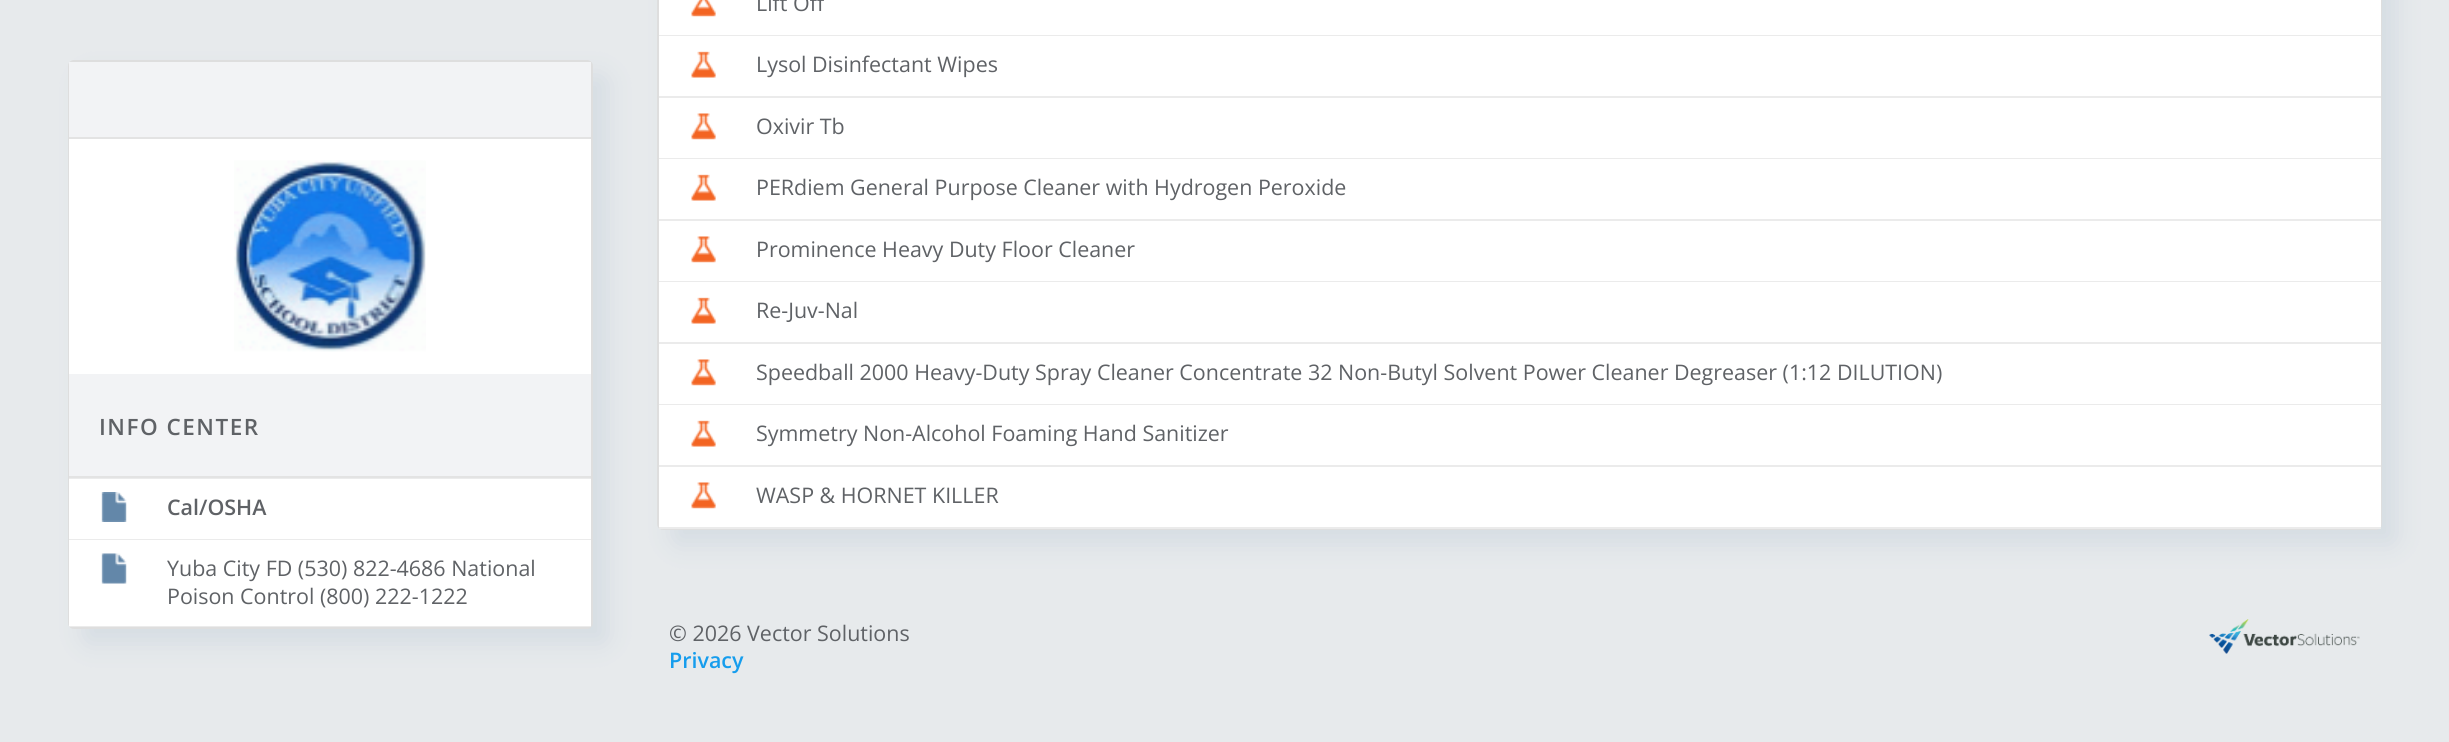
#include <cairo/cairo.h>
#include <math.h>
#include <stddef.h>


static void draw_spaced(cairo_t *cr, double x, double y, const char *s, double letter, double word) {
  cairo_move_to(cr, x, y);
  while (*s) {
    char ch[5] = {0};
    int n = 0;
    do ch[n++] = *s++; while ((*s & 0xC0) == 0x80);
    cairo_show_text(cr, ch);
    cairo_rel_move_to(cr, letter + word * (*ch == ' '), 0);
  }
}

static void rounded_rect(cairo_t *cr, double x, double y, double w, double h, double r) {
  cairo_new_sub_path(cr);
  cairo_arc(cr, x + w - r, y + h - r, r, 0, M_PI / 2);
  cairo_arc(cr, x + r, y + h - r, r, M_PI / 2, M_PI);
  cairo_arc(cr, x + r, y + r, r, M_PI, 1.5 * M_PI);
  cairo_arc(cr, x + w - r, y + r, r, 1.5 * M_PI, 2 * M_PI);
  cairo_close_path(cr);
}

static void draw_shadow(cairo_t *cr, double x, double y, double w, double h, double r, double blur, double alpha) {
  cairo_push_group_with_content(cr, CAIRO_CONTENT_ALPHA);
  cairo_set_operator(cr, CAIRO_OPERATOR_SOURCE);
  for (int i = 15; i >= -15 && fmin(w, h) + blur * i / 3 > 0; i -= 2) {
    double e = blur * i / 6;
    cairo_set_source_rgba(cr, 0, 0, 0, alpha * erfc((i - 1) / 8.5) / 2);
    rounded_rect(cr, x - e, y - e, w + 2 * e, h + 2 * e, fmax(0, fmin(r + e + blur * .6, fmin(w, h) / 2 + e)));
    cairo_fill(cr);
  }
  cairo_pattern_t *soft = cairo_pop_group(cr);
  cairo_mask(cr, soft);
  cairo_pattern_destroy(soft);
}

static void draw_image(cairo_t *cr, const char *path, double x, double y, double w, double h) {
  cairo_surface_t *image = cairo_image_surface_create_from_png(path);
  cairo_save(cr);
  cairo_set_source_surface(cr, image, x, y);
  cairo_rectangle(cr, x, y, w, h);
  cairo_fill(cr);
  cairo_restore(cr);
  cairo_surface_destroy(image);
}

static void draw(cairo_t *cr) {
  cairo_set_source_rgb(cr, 231 / 255.0, 234 / 255.0, 236 / 255.0);
  cairo_paint(cr);
  cairo_set_source_rgb(cr, 142 / 255.0, 168 / 255.0, 192 / 255.0);
  draw_shadow(cr, 83, 75, 525, 569, 6, 13, 0.2);
  rounded_rect(cr, 69, 61, 523, 567, 5);
  cairo_set_source_rgb(cr, 222 / 255.0, 222 / 255.0, 222 / 255.0);
  cairo_stroke(cr);
  cairo_set_source_rgb(cr, 242 / 255.0, 243 / 255.0, 245 / 255.0);
  cairo_rectangle(cr, 69, 62, 522, 75);
  cairo_fill(cr);
  cairo_set_source_rgb(cr, 227 / 255.0, 227 / 255.0, 227 / 255.0);
  cairo_rectangle(cr, 69, 137, 522, 2);
  cairo_fill(cr);
  cairo_set_source_rgb(cr, 1, 1, 1);
  cairo_rectangle(cr, 69, 139, 522, 235);
  cairo_fill(cr);
  draw_image(cr, "images/1.png", 234, 160, 192, 192);
  cairo_set_source_rgb(cr, 242 / 255.0, 243 / 255.0, 245 / 255.0);
  cairo_rectangle(cr, 69, 374, 522, 102);
  cairo_fill(cr);
  cairo_set_source_rgb(cr, 227 / 255.0, 227 / 255.0, 227 / 255.0);
  cairo_rectangle(cr, 69, 476, 522, 2);
  cairo_fill(cr);
  cairo_set_source_rgb(cr, 1, 1, 1);
  cairo_rectangle(cr, 69, 479, 522, 60);
  cairo_fill(cr);
  cairo_set_source_rgb(cr, 235 / 255.0, 235 / 255.0, 235 / 255.0);
  cairo_rectangle(cr, 69, 478, 522, 1);
  cairo_fill(cr);
  cairo_rectangle(cr, 69, 539, 522, 1);
  cairo_fill(cr);
  draw_image(cr, "images/2.png", 101, 492, 26, 30);
  cairo_set_source_rgb(cr, 1, 1, 1);
  cairo_rectangle(cr, 69, 540, 522, 86);
  cairo_fill(cr);
  cairo_set_source_rgb(cr, 235 / 255.0, 235 / 255.0, 235 / 255.0);
  cairo_rectangle(cr, 69, 626, 522, 1);
  cairo_fill(cr);
  draw_image(cr, "images/3.png", 101, 553, 26, 31);
  cairo_set_source_rgb(cr, 142 / 255.0, 168 / 255.0, 192 / 255.0);
  draw_shadow(cr, 672, -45, 1725, 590, 6, 13, 0.2);
  rounded_rect(cr, 658, -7, 1723, 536, 5);
  cairo_set_source_rgb(cr, 222 / 255.0, 222 / 255.0, 222 / 255.0);
  cairo_stroke(cr);
  cairo_set_source_rgb(cr, 1, 1, 1);
  cairo_rectangle(cr, 659, 0, 1722, 35);
  cairo_fill(cr);
  cairo_set_source_rgb(cr, 235 / 255.0, 235 / 255.0, 235 / 255.0);
  cairo_rectangle(cr, 659, 35, 1722, 1);
  cairo_fill(cr);
  draw_image(cr, "images/4.png", 691, 0, 25, 17);
  cairo_set_source_rgb(cr, 1, 1, 1);
  cairo_rectangle(cr, 659, 36, 1722, 60);
  cairo_fill(cr);
  cairo_set_source_rgb(cr, 235 / 255.0, 235 / 255.0, 235 / 255.0);
  cairo_rectangle(cr, 659, 96, 1722, 2);
  cairo_fill(cr);
  draw_image(cr, "images/5.png", 691, 51, 25, 27);
  cairo_set_source_rgb(cr, 1, 1, 1);
  cairo_rectangle(cr, 659, 98, 1722, 60);
  cairo_fill(cr);
  cairo_set_source_rgb(cr, 235 / 255.0, 235 / 255.0, 235 / 255.0);
  cairo_rectangle(cr, 659, 158, 1722, 1);
  cairo_fill(cr);
  draw_image(cr, "images/6.png", 691, 113, 25, 27);
  cairo_set_source_rgb(cr, 1, 1, 1);
  cairo_rectangle(cr, 659, 159, 1722, 60);
  cairo_fill(cr);
  cairo_set_source_rgb(cr, 235 / 255.0, 235 / 255.0, 235 / 255.0);
  cairo_rectangle(cr, 659, 219, 1722, 2);
  cairo_fill(cr);
  draw_image(cr, "images/5.png", 691, 174, 25, 27);
  cairo_set_source_rgb(cr, 1, 1, 1);
  cairo_rectangle(cr, 659, 221, 1722, 60);
  cairo_fill(cr);
  cairo_set_source_rgb(cr, 235 / 255.0, 235 / 255.0, 235 / 255.0);
  cairo_rectangle(cr, 659, 281, 1722, 1);
  cairo_fill(cr);
  draw_image(cr, "images/6.png", 691, 236, 25, 27);
  cairo_set_source_rgb(cr, 1, 1, 1);
  cairo_rectangle(cr, 659, 282, 1722, 60);
  cairo_fill(cr);
  cairo_set_source_rgb(cr, 235 / 255.0, 235 / 255.0, 235 / 255.0);
  cairo_rectangle(cr, 659, 342, 1722, 2);
  cairo_fill(cr);
  draw_image(cr, "images/5.png", 691, 297, 25, 27);
  cairo_set_source_rgb(cr, 1, 1, 1);
  cairo_rectangle(cr, 659, 344, 1722, 60);
  cairo_fill(cr);
  cairo_set_source_rgb(cr, 235 / 255.0, 235 / 255.0, 235 / 255.0);
  cairo_rectangle(cr, 659, 404, 1722, 1);
  cairo_fill(cr);
  draw_image(cr, "images/6.png", 691, 359, 25, 27);
  cairo_set_source_rgb(cr, 1, 1, 1);
  cairo_rectangle(cr, 659, 405, 1722, 60);
  cairo_fill(cr);
  cairo_set_source_rgb(cr, 235 / 255.0, 235 / 255.0, 235 / 255.0);
  cairo_rectangle(cr, 659, 465, 1722, 2);
  cairo_fill(cr);
  draw_image(cr, "images/5.png", 691, 420, 25, 27);
  cairo_set_source_rgb(cr, 1, 1, 1);
  cairo_rectangle(cr, 659, 467, 1722, 60);
  cairo_fill(cr);
  cairo_set_source_rgb(cr, 235 / 255.0, 235 / 255.0, 235 / 255.0);
  cairo_rectangle(cr, 659, 527, 1722, 2);
  cairo_fill(cr);
  draw_image(cr, "images/6.png", 691, 482, 25, 27);
  draw_image(cr, "images/7.png", 2209, 619, 151, 35);
  cairo_select_font_face(cr, "Open Sans SemiBold", CAIRO_FONT_SLANT_NORMAL, CAIRO_FONT_WEIGHT_NORMAL);
  cairo_set_font_size(cr, 22.5);
  cairo_set_source_rgb(cr, 95 / 255.0, 98 / 255.0, 102 / 255.0);
  draw_spaced(cr, 99, 435, "INFO CENTER", 1.5, 0);
  cairo_set_font_size(cr, 21.45);
  cairo_move_to(cr, 167, 515);
  cairo_show_text(cr, "Cal/OSHA");
  cairo_select_font_face(cr, "Open Sans", CAIRO_FONT_SLANT_NORMAL, CAIRO_FONT_WEIGHT_NORMAL);
  cairo_move_to(cr, 167, 576);
  cairo_show_text(cr, "Yuba City FD (530) 822-4686 National");
  cairo_move_to(cr, 167, 604);
  cairo_show_text(cr, "Poison Control (800) 222-1222");
  cairo_move_to(cr, 756, 11);
  cairo_show_text(cr, "Lift Off");
  cairo_move_to(cr, 756, 72);
  cairo_show_text(cr, "Lysol Disinfectant Wipes");
  cairo_move_to(cr, 756, 134);
  cairo_show_text(cr, "Oxivir Tb");
  cairo_move_to(cr, 756, 195);
  cairo_show_text(cr, "PERdiem General Purpose Cleaner with Hydrogen Peroxide");
  cairo_move_to(cr, 756, 257);
  cairo_show_text(cr, "Prominence Heavy Duty Floor Cleaner");
  cairo_move_to(cr, 756, 318);
  cairo_show_text(cr, "Re-Juv-Nal");
  cairo_move_to(cr, 756, 380);
  cairo_show_text(cr, "Speedball 2000 Heavy-Duty Spray Cleaner Concentrate 32 Non-Butyl Solvent Power Cleaner Degreaser (1:12 DILUTION)");
  cairo_move_to(cr, 756, 441);
  cairo_show_text(cr, "Symmetry Non-Alcohol Foaming Hand Sanitizer");
  cairo_move_to(cr, 756, 503);
  cairo_show_text(cr, "WASP & HORNET KILLER");
  cairo_move_to(cr, 669, 641);
  cairo_show_text(cr, "© 2026 Vector Solutions");
  cairo_select_font_face(cr, "Open Sans SemiBold", CAIRO_FONT_SLANT_NORMAL, CAIRO_FONT_WEIGHT_NORMAL);
  cairo_set_source_rgb(cr, 22 / 255.0, 157 / 255.0, 237 / 255.0);
  cairo_move_to(cr, 669, 668);
  cairo_show_text(cr, "Privacy");
}

int main(void) {
  cairo_surface_t *surface = cairo_image_surface_create(CAIRO_FORMAT_RGB24, 2449, 742);
  cairo_t *cr = cairo_create(surface);
  cairo_font_options_t *options = cairo_font_options_create();
  cairo_font_options_set_hint_metrics(options, CAIRO_HINT_METRICS_OFF);
  cairo_font_options_set_hint_style(options, CAIRO_HINT_STYLE_NONE);
  cairo_set_font_options(cr, options);
  cairo_set_miter_limit(cr, 4);
  draw(cr);
  cairo_surface_write_to_png(surface, "out.png");
  cairo_font_options_destroy(options);
  cairo_destroy(cr);
  cairo_surface_destroy(surface);
  return 0;
}
